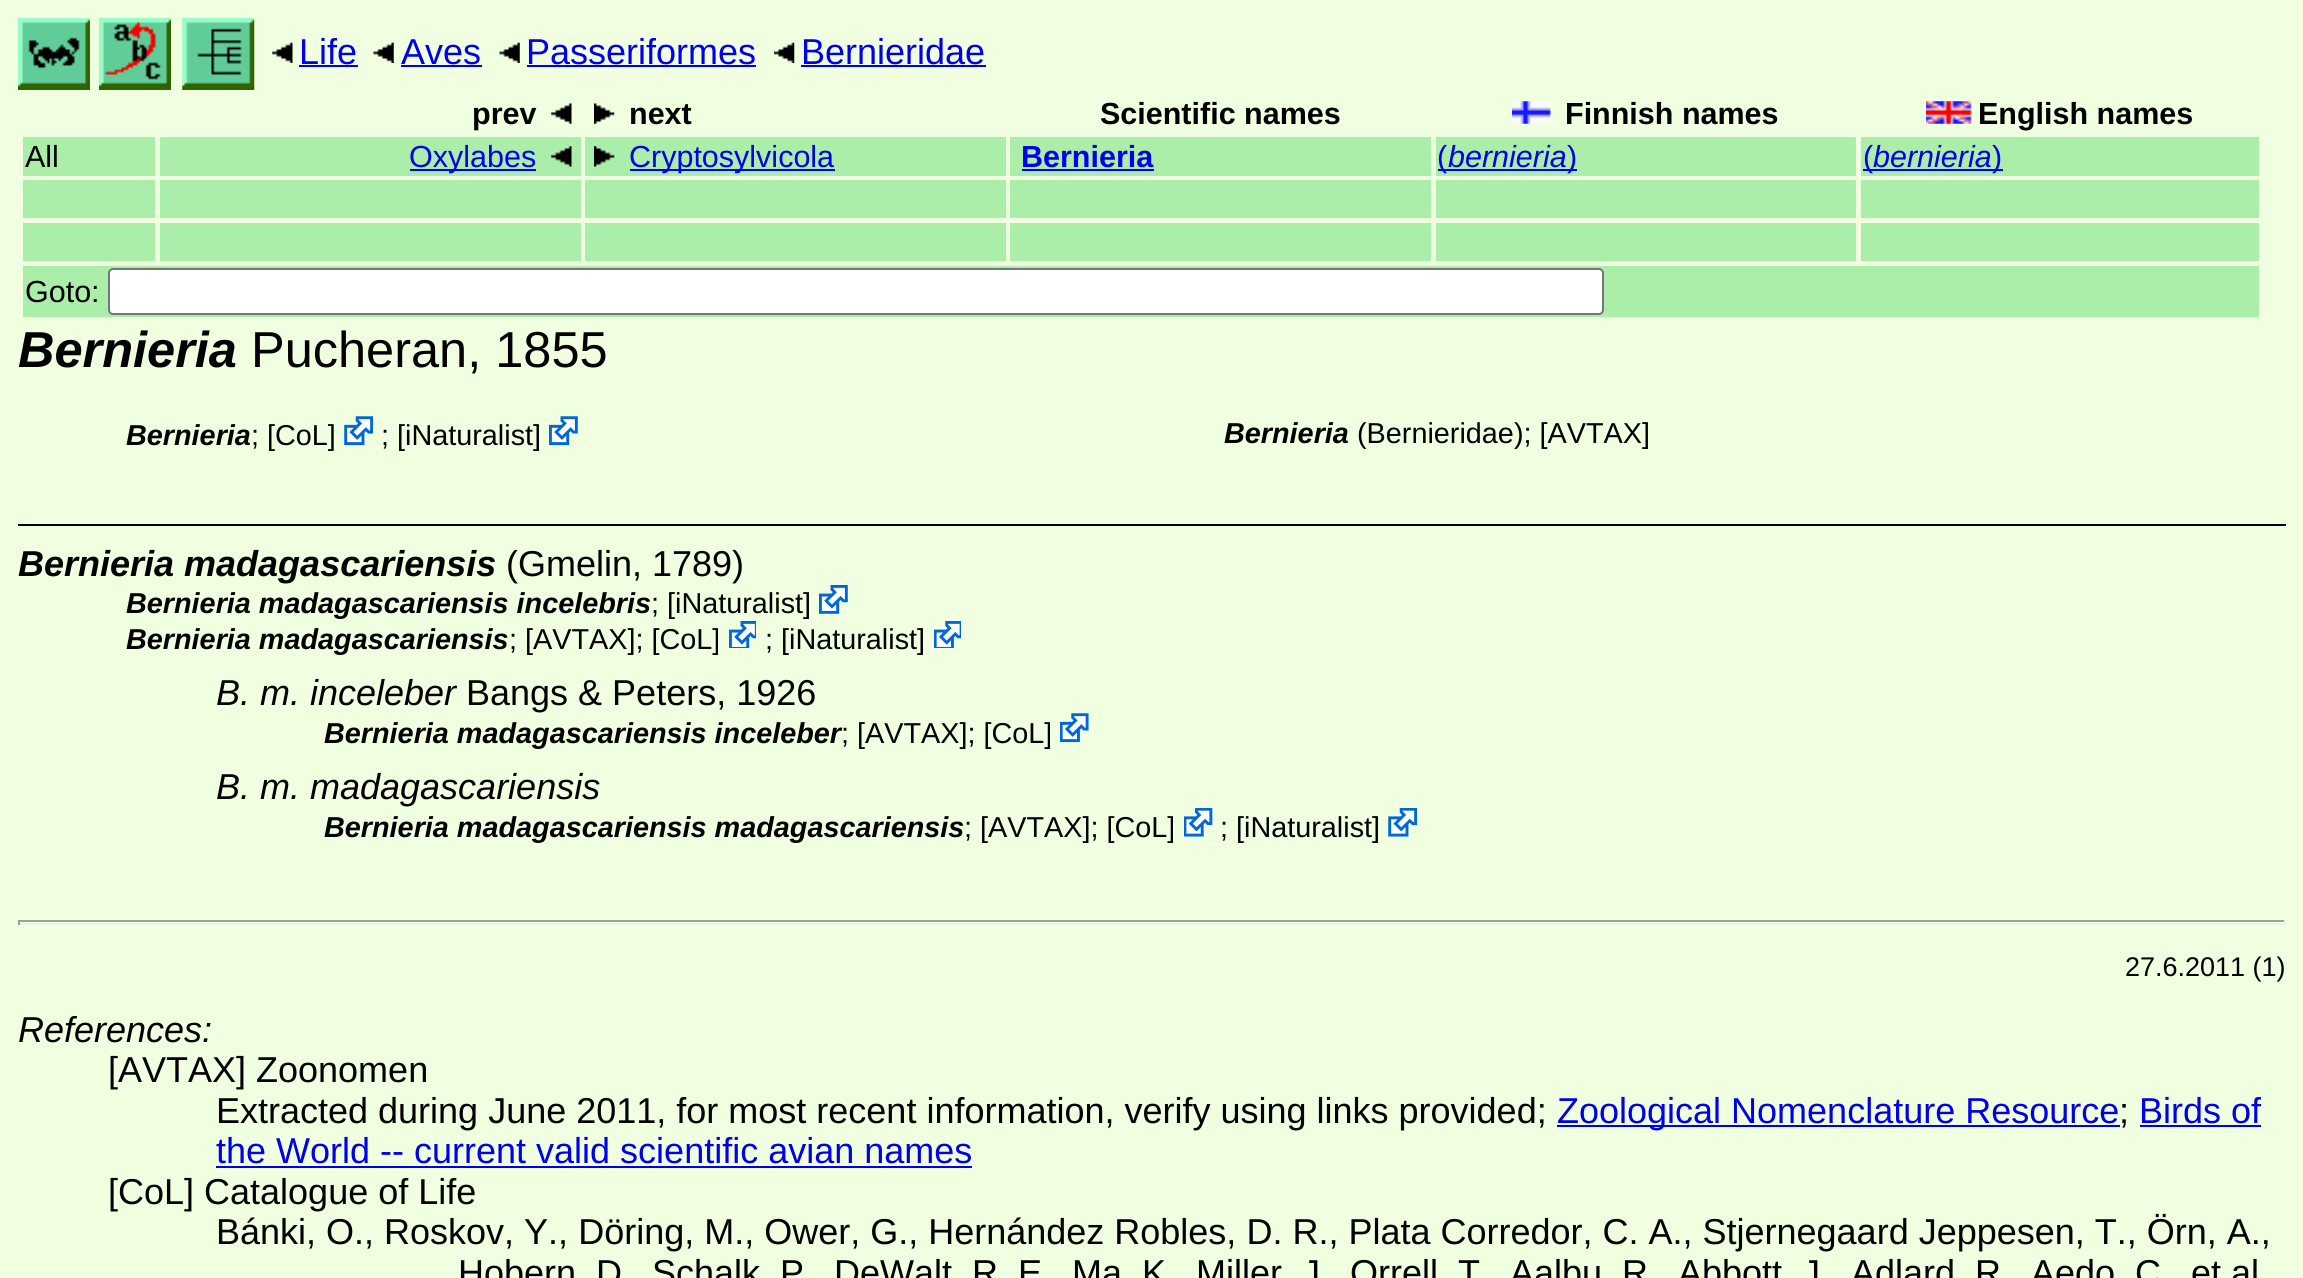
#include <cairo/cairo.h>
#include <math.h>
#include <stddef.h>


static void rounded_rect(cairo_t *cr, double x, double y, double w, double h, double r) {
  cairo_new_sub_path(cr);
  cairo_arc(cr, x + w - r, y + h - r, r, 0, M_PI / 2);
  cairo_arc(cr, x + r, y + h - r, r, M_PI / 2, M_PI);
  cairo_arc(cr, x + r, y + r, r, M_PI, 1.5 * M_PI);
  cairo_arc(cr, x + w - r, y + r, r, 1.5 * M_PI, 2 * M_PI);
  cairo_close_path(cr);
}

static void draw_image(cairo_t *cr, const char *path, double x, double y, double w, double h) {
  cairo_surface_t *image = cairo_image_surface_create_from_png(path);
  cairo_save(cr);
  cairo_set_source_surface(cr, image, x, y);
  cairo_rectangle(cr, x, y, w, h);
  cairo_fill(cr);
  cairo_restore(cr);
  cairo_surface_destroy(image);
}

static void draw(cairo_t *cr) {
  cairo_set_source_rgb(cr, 240 / 255.0, 1, 224 / 255.0);
  cairo_paint(cr);
  draw_image(cr, "images/1.png", 18, 18, 72, 72);
  draw_image(cr, "images/2.png", 99, 18, 72, 72);
  draw_image(cr, "images/3.png", 182, 18, 73, 72);
  draw_image(cr, "images/4.png", 272, 42, 21, 21);
  cairo_set_source_rgb(cr, 0, 0, 238 / 255.0);
  cairo_rectangle(cr, 299, 65, 59, 2);
  cairo_fill(cr);
  draw_image(cr, "images/5.png", 373, 42, 21, 21);
  cairo_rectangle(cr, 401, 65, 81, 2);
  cairo_fill(cr);
  draw_image(cr, "images/6.png", 499, 42, 21, 21);
  cairo_rectangle(cr, 527, 65, 229, 2);
  cairo_fill(cr);
  draw_image(cr, "images/7.png", 774, 42, 21, 21);
  cairo_rectangle(cr, 801, 65, 185, 2);
  cairo_fill(cr);
  draw_image(cr, "images/8.png", 551, 103, 21, 21);
  draw_image(cr, "images/9.png", 594, 103, 21, 21);
  draw_image(cr, "images/10.png", 1512, 101, 39, 23);
  draw_image(cr, "images/11.png", 1926, 101, 46, 23);
  cairo_set_source_rgb(cr, 170 / 255.0, 238 / 255.0, 170 / 255.0);
  cairo_rectangle(cr, 23, 137, 132, 39);
  cairo_fill(cr);
  cairo_rectangle(cr, 160, 137, 421, 39);
  cairo_fill(cr);
  cairo_set_source_rgb(cr, 0, 0, 238 / 255.0);
  cairo_rectangle(cr, 410, 169, 126, 2);
  cairo_fill(cr);
  draw_image(cr, "images/12.png", 551, 146, 21, 21);
  cairo_set_source_rgb(cr, 170 / 255.0, 238 / 255.0, 170 / 255.0);
  cairo_rectangle(cr, 585, 137, 421, 39);
  cairo_fill(cr);
  draw_image(cr, "images/13.png", 594, 146, 21, 21);
  cairo_set_source_rgb(cr, 0, 0, 238 / 255.0);
  cairo_rectangle(cr, 630, 169, 205, 2);
  cairo_fill(cr);
  cairo_set_source_rgb(cr, 170 / 255.0, 238 / 255.0, 170 / 255.0);
  cairo_rectangle(cr, 1010, 137, 421, 39);
  cairo_fill(cr);
  cairo_set_source_rgb(cr, 0, 0, 238 / 255.0);
  cairo_rectangle(cr, 1022, 169, 132, 2);
  cairo_fill(cr);
  cairo_set_source_rgb(cr, 170 / 255.0, 238 / 255.0, 170 / 255.0);
  cairo_rectangle(cr, 1436, 137, 420, 39);
  cairo_fill(cr);
  cairo_set_source_rgb(cr, 0, 0, 238 / 255.0);
  cairo_rectangle(cr, 1438, 169, 9, 2);
  cairo_fill(cr);
  cairo_rectangle(cr, 1447, 169, 130, 2);
  cairo_fill(cr);
  cairo_set_source_rgb(cr, 170 / 255.0, 238 / 255.0, 170 / 255.0);
  cairo_rectangle(cr, 1861, 137, 398, 39);
  cairo_fill(cr);
  cairo_set_source_rgb(cr, 0, 0, 238 / 255.0);
  cairo_rectangle(cr, 1863, 169, 9, 2);
  cairo_fill(cr);
  cairo_rectangle(cr, 1872, 169, 131, 2);
  cairo_fill(cr);
  cairo_set_source_rgb(cr, 170 / 255.0, 238 / 255.0, 170 / 255.0);
  cairo_rectangle(cr, 23, 180, 132, 38);
  cairo_fill(cr);
  cairo_rectangle(cr, 160, 180, 421, 38);
  cairo_fill(cr);
  cairo_rectangle(cr, 585, 180, 421, 38);
  cairo_fill(cr);
  cairo_rectangle(cr, 1010, 180, 421, 38);
  cairo_fill(cr);
  cairo_rectangle(cr, 1436, 180, 420, 38);
  cairo_fill(cr);
  cairo_rectangle(cr, 1861, 180, 398, 38);
  cairo_fill(cr);
  cairo_rectangle(cr, 23, 223, 132, 38);
  cairo_fill(cr);
  cairo_rectangle(cr, 160, 223, 421, 38);
  cairo_fill(cr);
  cairo_rectangle(cr, 585, 223, 421, 38);
  cairo_fill(cr);
  cairo_rectangle(cr, 1010, 223, 421, 38);
  cairo_fill(cr);
  cairo_rectangle(cr, 1436, 223, 420, 38);
  cairo_fill(cr);
  cairo_rectangle(cr, 1861, 223, 398, 38);
  cairo_fill(cr);
  cairo_rectangle(cr, 23, 266, 2236, 51);
  cairo_fill(cr);
  cairo_set_source_rgb(cr, 1, 1, 1);
  rounded_rect(cr, 109, 269, 1494, 45, 4);
  cairo_fill_preserve(cr);
  cairo_set_source_rgb(cr, 118 / 255.0, 118 / 255.0, 118 / 255.0);
  cairo_stroke(cr);
  draw_image(cr, "images/14.png", 344, 416, 30, 30);
  draw_image(cr, "images/15.png", 549, 416, 29, 30);
  cairo_set_source_rgb(cr, 0, 0, 0);
  cairo_rectangle(cr, 18, 524, 2268, 2);
  cairo_fill(cr);
  draw_image(cr, "images/16.png", 819, 585, 29, 29);
  draw_image(cr, "images/17.png", 729, 621, 27, 27);
  draw_image(cr, "images/18.png", 934, 621, 27, 27);
  draw_image(cr, "images/19.png", 1060, 713, 29, 30);
  draw_image(cr, "images/20.png", 1184, 808, 29, 29);
  draw_image(cr, "images/21.png", 1388, 808, 30, 29);
  cairo_set_source_rgb(cr, 159 / 255.0, 159 / 255.0, 159 / 255.0);
  cairo_rectangle(cr, 18, 920, 2268, 2);
  cairo_fill(cr);
  cairo_set_source_rgb(cr, 238 / 255.0, 238 / 255.0, 238 / 255.0);
  cairo_rectangle(cr, 2284, 920, 2, 5);
  cairo_fill(cr);
  cairo_rectangle(cr, 18, 923, 2268, 2);
  cairo_fill(cr);
  cairo_set_source_rgb(cr, 159 / 255.0, 159 / 255.0, 159 / 255.0);
  cairo_rectangle(cr, 18, 920, 2, 5);
  cairo_fill(cr);
  cairo_set_source_rgb(cr, 0, 0, 238 / 255.0);
  cairo_rectangle(cr, 1557, 1125, 563, 2);
  cairo_fill(cr);
  cairo_rectangle(cr, 2140, 1125, 121, 2);
  cairo_fill(cr);
  cairo_rectangle(cr, 216, 1166, 756, 2);
  cairo_fill(cr);
  cairo_select_font_face(cr, "Liberation Sans", CAIRO_FONT_SLANT_NORMAL, CAIRO_FONT_WEIGHT_NORMAL);
  cairo_set_font_size(cr, 36);
  cairo_move_to(cr, 299, 64);
  cairo_show_text(cr, "Life");
  cairo_move_to(cr, 401, 64);
  cairo_show_text(cr, "Aves");
  cairo_move_to(cr, 526, 64);
  cairo_show_text(cr, "Passeriformes");
  cairo_move_to(cr, 801, 64);
  cairo_show_text(cr, "Bernieridae");
  cairo_select_font_face(cr, "Liberation Sans", CAIRO_FONT_SLANT_NORMAL, CAIRO_FONT_WEIGHT_BOLD);
  cairo_set_font_size(cr, 30.5);
  cairo_set_source_rgb(cr, 0, 0, 0);
  cairo_move_to(cr, 472, 124);
  cairo_show_text(cr, "prev");
  cairo_move_to(cr, 629, 124);
  cairo_show_text(cr, "next");
  cairo_move_to(cr, 1100, 124);
  cairo_show_text(cr, "Scientific names");
  cairo_move_to(cr, 1565, 124);
  cairo_show_text(cr, "Finnish names");
  cairo_move_to(cr, 1978, 124);
  cairo_show_text(cr, "English names");
  cairo_select_font_face(cr, "Liberation Sans", CAIRO_FONT_SLANT_NORMAL, CAIRO_FONT_WEIGHT_NORMAL);
  cairo_move_to(cr, 25, 167);
  cairo_show_text(cr, "All");
  cairo_set_source_rgb(cr, 0, 0, 238 / 255.0);
  cairo_move_to(cr, 409, 167);
  cairo_show_text(cr, "Oxylabes");
  cairo_move_to(cr, 629, 167);
  cairo_show_text(cr, "Cryptosylvicola");
  cairo_select_font_face(cr, "Liberation Sans", CAIRO_FONT_SLANT_NORMAL, CAIRO_FONT_WEIGHT_BOLD);
  cairo_move_to(cr, 1021, 167);
  cairo_show_text(cr, "Bernieria");
  cairo_select_font_face(cr, "Liberation Sans", CAIRO_FONT_SLANT_NORMAL, CAIRO_FONT_WEIGHT_NORMAL);
  cairo_move_to(cr, 1437, 167);
  cairo_show_text(cr, "(");
  cairo_select_font_face(cr, "Liberation Sans", CAIRO_FONT_SLANT_ITALIC, CAIRO_FONT_WEIGHT_NORMAL);
  cairo_move_to(cr, 1448, 167);
  cairo_show_text(cr, "bernieria");
  cairo_select_font_face(cr, "Liberation Sans", CAIRO_FONT_SLANT_NORMAL, CAIRO_FONT_WEIGHT_NORMAL);
  cairo_move_to(cr, 1567, 167);
  cairo_show_text(cr, ")");
  cairo_move_to(cr, 1863, 167);
  cairo_show_text(cr, "(");
  cairo_select_font_face(cr, "Liberation Sans", CAIRO_FONT_SLANT_ITALIC, CAIRO_FONT_WEIGHT_NORMAL);
  cairo_move_to(cr, 1873, 167);
  cairo_show_text(cr, "bernieria");
  cairo_select_font_face(cr, "Liberation Sans", CAIRO_FONT_SLANT_NORMAL, CAIRO_FONT_WEIGHT_NORMAL);
  cairo_move_to(cr, 1992, 167);
  cairo_show_text(cr, ")");
  cairo_set_source_rgb(cr, 0, 0, 0);
  cairo_move_to(cr, 25, 302);
  cairo_show_text(cr, "Goto:");
  cairo_select_font_face(cr, "Liberation Sans", CAIRO_FONT_SLANT_ITALIC, CAIRO_FONT_WEIGHT_BOLD);
  cairo_set_font_size(cr, 50.5);
  cairo_move_to(cr, 18, 367);
  cairo_show_text(cr, "Bernieria");
  cairo_select_font_face(cr, "Liberation Sans", CAIRO_FONT_SLANT_NORMAL, CAIRO_FONT_WEIGHT_NORMAL);
  cairo_move_to(cr, 251, 367);
  cairo_show_text(cr, "Pucheran, 1855");
  cairo_select_font_face(cr, "Liberation Sans", CAIRO_FONT_SLANT_ITALIC, CAIRO_FONT_WEIGHT_BOLD);
  cairo_set_font_size(cr, 28.8);
  cairo_move_to(cr, 126, 445);
  cairo_show_text(cr, "Bernieria");
  cairo_select_font_face(cr, "Liberation Sans", CAIRO_FONT_SLANT_NORMAL, CAIRO_FONT_WEIGHT_NORMAL);
  cairo_move_to(cr, 251, 445);
  cairo_show_text(cr, "; [CoL]");
  cairo_move_to(cr, 381, 445);
  cairo_show_text(cr, "; [iNaturalist]");
  cairo_select_font_face(cr, "Liberation Sans", CAIRO_FONT_SLANT_ITALIC, CAIRO_FONT_WEIGHT_BOLD);
  cairo_move_to(cr, 1224, 443);
  cairo_show_text(cr, "Bernieria");
  cairo_select_font_face(cr, "Liberation Sans", CAIRO_FONT_SLANT_NORMAL, CAIRO_FONT_WEIGHT_NORMAL);
  cairo_move_to(cr, 1357, 443);
  cairo_show_text(cr, "(Bernieridae); [AVTAX]");
  cairo_select_font_face(cr, "Liberation Sans", CAIRO_FONT_SLANT_ITALIC, CAIRO_FONT_WEIGHT_BOLD);
  cairo_set_font_size(cr, 36);
  cairo_move_to(cr, 18, 576);
  cairo_show_text(cr, "Bernieria madagascariensis");
  cairo_select_font_face(cr, "Liberation Sans", CAIRO_FONT_SLANT_NORMAL, CAIRO_FONT_WEIGHT_NORMAL);
  cairo_move_to(cr, 506, 576);
  cairo_show_text(cr, "(Gmelin, 1789)");
  cairo_select_font_face(cr, "Liberation Sans", CAIRO_FONT_SLANT_ITALIC, CAIRO_FONT_WEIGHT_BOLD);
  cairo_set_font_size(cr, 28.8);
  cairo_move_to(cr, 126, 613);
  cairo_show_text(cr, "Bernieria madagascariensis incelebris");
  cairo_select_font_face(cr, "Liberation Sans", CAIRO_FONT_SLANT_NORMAL, CAIRO_FONT_WEIGHT_NORMAL);
  cairo_move_to(cr, 651, 613);
  cairo_show_text(cr, "; [iNaturalist]");
  cairo_select_font_face(cr, "Liberation Sans", CAIRO_FONT_SLANT_ITALIC, CAIRO_FONT_WEIGHT_BOLD);
  cairo_move_to(cr, 126, 649);
  cairo_show_text(cr, "Bernieria madagascariensis");
  cairo_select_font_face(cr, "Liberation Sans", CAIRO_FONT_SLANT_NORMAL, CAIRO_FONT_WEIGHT_NORMAL);
  cairo_move_to(cr, 509, 649);
  cairo_show_text(cr, "; [AVTAX]; [CoL]");
  cairo_move_to(cr, 765, 649);
  cairo_show_text(cr, "; [iNaturalist]");
  cairo_select_font_face(cr, "Liberation Sans", CAIRO_FONT_SLANT_ITALIC, CAIRO_FONT_WEIGHT_NORMAL);
  cairo_set_font_size(cr, 36);
  cairo_move_to(cr, 216, 705);
  cairo_show_text(cr, "B. m. inceleber");
  cairo_select_font_face(cr, "Liberation Sans", CAIRO_FONT_SLANT_NORMAL, CAIRO_FONT_WEIGHT_NORMAL);
  cairo_move_to(cr, 466, 705);
  cairo_show_text(cr, "Bangs & Peters, 1926");
  cairo_select_font_face(cr, "Liberation Sans", CAIRO_FONT_SLANT_ITALIC, CAIRO_FONT_WEIGHT_BOLD);
  cairo_set_font_size(cr, 28.8);
  cairo_move_to(cr, 324, 743);
  cairo_show_text(cr, "Bernieria madagascariensis inceleber");
  cairo_select_font_face(cr, "Liberation Sans", CAIRO_FONT_SLANT_NORMAL, CAIRO_FONT_WEIGHT_NORMAL);
  cairo_move_to(cr, 841, 743);
  cairo_show_text(cr, "; [AVTAX]; [CoL]");
  cairo_select_font_face(cr, "Liberation Sans", CAIRO_FONT_SLANT_ITALIC, CAIRO_FONT_WEIGHT_NORMAL);
  cairo_set_font_size(cr, 36);
  cairo_move_to(cr, 216, 799);
  cairo_show_text(cr, "B. m. madagascariensis");
  cairo_select_font_face(cr, "Liberation Sans", CAIRO_FONT_SLANT_ITALIC, CAIRO_FONT_WEIGHT_BOLD);
  cairo_set_font_size(cr, 28.8);
  cairo_move_to(cr, 324, 837);
  cairo_show_text(cr, "Bernieria madagascariensis madagascariensis");
  cairo_select_font_face(cr, "Liberation Sans", CAIRO_FONT_SLANT_NORMAL, CAIRO_FONT_WEIGHT_NORMAL);
  cairo_move_to(cr, 964, 837);
  cairo_show_text(cr, "; [AVTAX]; [CoL]");
  cairo_move_to(cr, 1220, 837);
  cairo_show_text(cr, "; [iNaturalist]");
  cairo_set_font_size(cr, 27);
  cairo_move_to(cr, 2125, 976);
  cairo_show_text(cr, "27.6.2011 (1)");
  cairo_select_font_face(cr, "Liberation Sans", CAIRO_FONT_SLANT_ITALIC, CAIRO_FONT_WEIGHT_NORMAL);
  cairo_set_font_size(cr, 36);
  cairo_move_to(cr, 18, 1042);
  cairo_show_text(cr, "References:");
  cairo_select_font_face(cr, "Liberation Sans", CAIRO_FONT_SLANT_NORMAL, CAIRO_FONT_WEIGHT_NORMAL);
  cairo_move_to(cr, 108, 1082);
  cairo_show_text(cr, "[AVTAX] Zoonomen");
  cairo_move_to(cr, 216, 1123);
  cairo_show_text(cr, "Extracted during June 2011, for most recent information, verify using links provided;");
  cairo_set_source_rgb(cr, 0, 0, 238 / 255.0);
  cairo_move_to(cr, 1557, 1123);
  cairo_show_text(cr, "Zoological Nomenclature Resource");
  cairo_set_source_rgb(cr, 0, 0, 0);
  cairo_move_to(cr, 2119, 1123);
  cairo_show_text(cr, ";");
  cairo_set_source_rgb(cr, 0, 0, 238 / 255.0);
  cairo_move_to(cr, 2139, 1123);
  cairo_show_text(cr, "Birds of");
  cairo_move_to(cr, 216, 1163);
  cairo_show_text(cr, "the World -- current valid scientific avian names");
  cairo_set_source_rgb(cr, 0, 0, 0);
  cairo_move_to(cr, 108, 1204);
  cairo_show_text(cr, "[CoL] Catalogue of Life");
  cairo_move_to(cr, 216, 1244);
  cairo_show_text(cr, "Bánki, O., Roskov, Y., Döring, M., Ower, G., Hernández Robles, D. R., Plata Corredor, C. A., Stjernegaard Jeppesen, T., Örn, A.,");
  cairo_move_to(cr, 458, 1285);
  cairo_show_text(cr, "Hobern, D");
  cairo_move_to(cr, 652, 1285);
  cairo_show_text(cr, "Schalk, P");
  cairo_move_to(cr, 834, 1285);
  cairo_show_text(cr, "DeWalt, R. E");
  cairo_move_to(cr, 1072, 1285);
  cairo_show_text(cr, "Ma, K");
  cairo_move_to(cr, 1196, 1285);
  cairo_show_text(cr, "Miller, J");
  cairo_move_to(cr, 1350, 1285);
  cairo_show_text(cr, "Orrell, T");
  cairo_move_to(cr, 1510, 1285);
  cairo_show_text(cr, "Aalbu, R");
  cairo_move_to(cr, 1678, 1285);
  cairo_show_text(cr, "Abbott, J");
  cairo_move_to(cr, 1851, 1285);
  cairo_show_text(cr, "Adlard, R");
  cairo_move_to(cr, 2031, 1285);
  cairo_show_text(cr, "Aedo, C");
  cairo_move_to(cr, 2191, 1285);
  cairo_show_text(cr, "et al");
}

int main(void) {
  cairo_surface_t *surface = cairo_image_surface_create(CAIRO_FORMAT_RGB24, 2303, 1278);
  cairo_t *cr = cairo_create(surface);
  cairo_font_options_t *options = cairo_font_options_create();
  cairo_font_options_set_hint_metrics(options, CAIRO_HINT_METRICS_OFF);
  cairo_font_options_set_hint_style(options, CAIRO_HINT_STYLE_NONE);
  cairo_set_font_options(cr, options);
  cairo_set_miter_limit(cr, 4);
  draw(cr);
  cairo_surface_write_to_png(surface, "out.png");
  cairo_font_options_destroy(options);
  cairo_destroy(cr);
  cairo_surface_destroy(surface);
  return 0;
}
